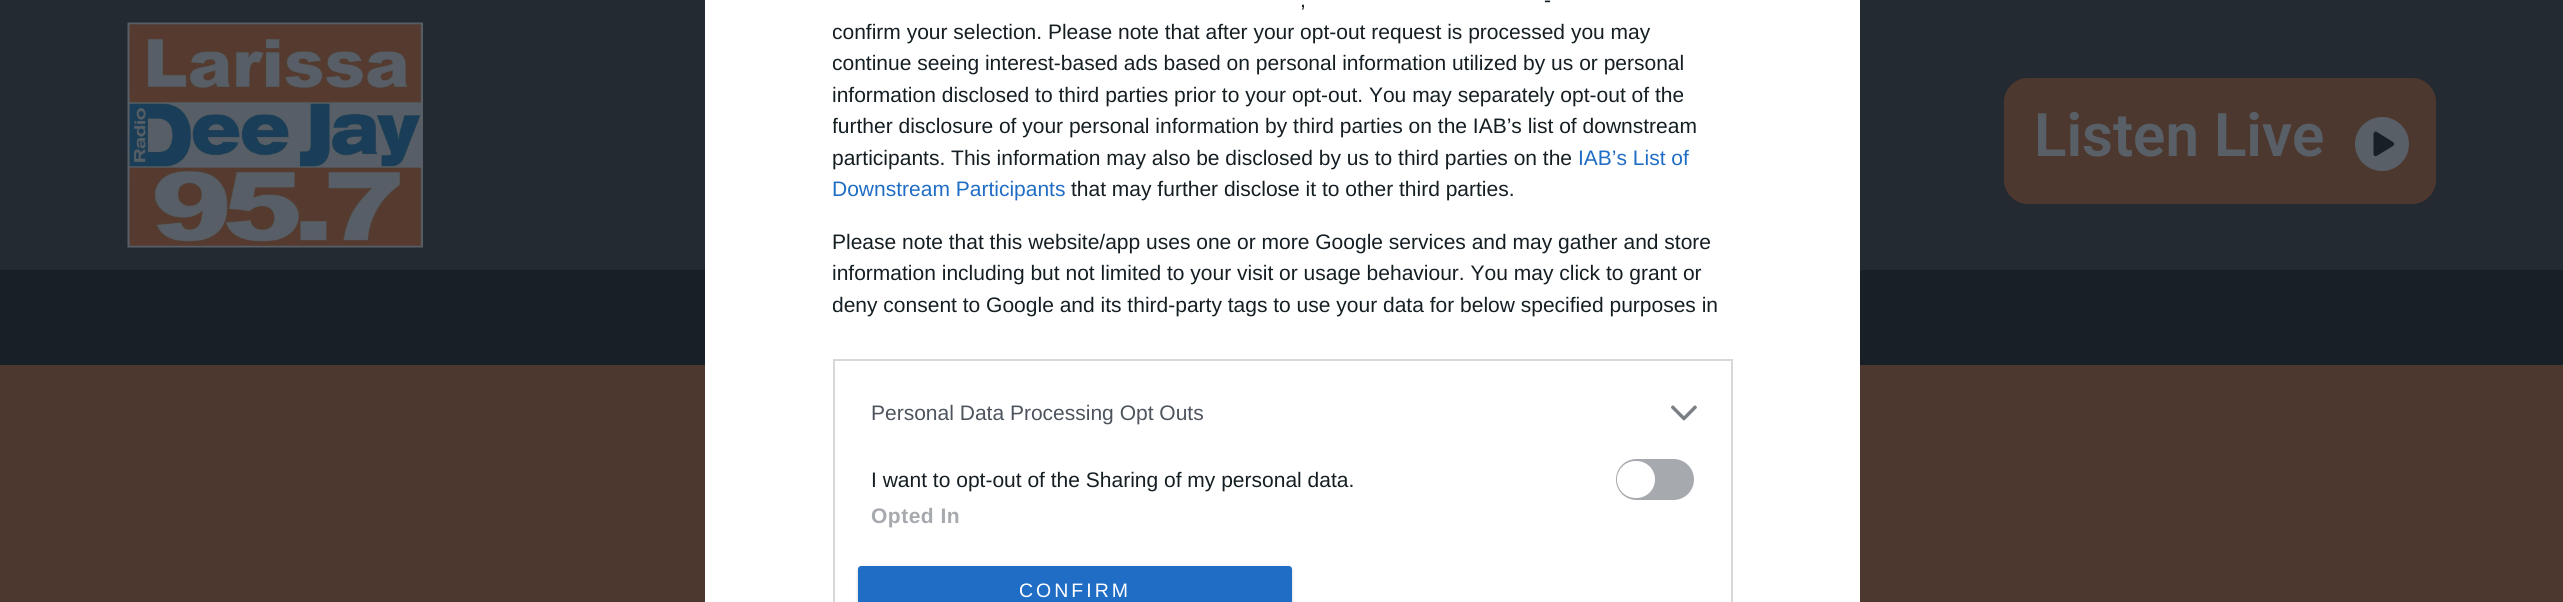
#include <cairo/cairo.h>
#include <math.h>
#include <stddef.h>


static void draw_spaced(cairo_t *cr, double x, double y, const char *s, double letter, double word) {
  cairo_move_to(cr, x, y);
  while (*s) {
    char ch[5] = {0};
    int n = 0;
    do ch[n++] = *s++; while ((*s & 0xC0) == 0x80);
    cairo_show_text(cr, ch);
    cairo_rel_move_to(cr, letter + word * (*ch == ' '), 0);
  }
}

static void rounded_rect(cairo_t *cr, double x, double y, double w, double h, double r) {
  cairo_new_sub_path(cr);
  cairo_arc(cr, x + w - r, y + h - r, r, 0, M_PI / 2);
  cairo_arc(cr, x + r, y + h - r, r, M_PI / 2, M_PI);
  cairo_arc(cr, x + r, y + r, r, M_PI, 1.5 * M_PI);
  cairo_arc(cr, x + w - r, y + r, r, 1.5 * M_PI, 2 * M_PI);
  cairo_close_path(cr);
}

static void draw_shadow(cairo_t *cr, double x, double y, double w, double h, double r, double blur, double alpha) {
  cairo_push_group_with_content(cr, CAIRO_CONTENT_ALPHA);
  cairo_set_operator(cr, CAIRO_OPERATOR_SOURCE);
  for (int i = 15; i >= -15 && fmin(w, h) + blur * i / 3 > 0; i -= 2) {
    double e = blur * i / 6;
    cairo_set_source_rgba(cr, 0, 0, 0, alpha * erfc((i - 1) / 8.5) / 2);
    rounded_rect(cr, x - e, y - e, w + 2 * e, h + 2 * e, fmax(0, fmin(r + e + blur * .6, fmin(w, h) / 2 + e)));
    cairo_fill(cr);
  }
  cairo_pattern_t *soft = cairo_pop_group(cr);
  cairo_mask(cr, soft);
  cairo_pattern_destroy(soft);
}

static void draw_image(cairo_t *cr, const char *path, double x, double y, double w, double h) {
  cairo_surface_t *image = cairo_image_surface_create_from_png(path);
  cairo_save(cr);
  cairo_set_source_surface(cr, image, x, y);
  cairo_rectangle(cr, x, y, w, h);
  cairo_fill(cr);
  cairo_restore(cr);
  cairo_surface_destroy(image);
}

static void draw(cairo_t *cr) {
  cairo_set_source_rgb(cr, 77 / 255.0, 56 / 255.0, 47 / 255.0);
  cairo_paint(cr);
  cairo_set_source_rgb(cr, 25 / 255.0, 31 / 255.0, 39 / 255.0);
  cairo_rectangle(cr, 0, 270, 2563, 95);
  cairo_fill(cr);
  cairo_set_source_rgb(cr, 36 / 255.0, 42 / 255.0, 50 / 255.0);
  cairo_rectangle(cr, 0, 0, 2563, 270);
  cairo_fill(cr);
  cairo_set_source_rgb(cr, 1, 1, 1);
  cairo_rectangle(cr, 705, 0, 1155, 602);
  cairo_fill(cr);
  cairo_rectangle(cr, 834, 360, 898, 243);
  cairo_set_source_rgb(cr, 216 / 255.0, 216 / 255.0, 216 / 255.0);
  cairo_stroke(cr);
  draw_image(cr, "images/1.png", 1671, 405, 26, 16);
  cairo_set_source_rgb(cr, 166 / 255.0, 169 / 255.0, 174 / 255.0);
  rounded_rect(cr, 1617, 460, 76, 39, 19.5);
  cairo_fill_preserve(cr);
  cairo_stroke(cr);
  cairo_set_source_rgb(cr, 1, 1, 1);
  rounded_rect(cr, 1617, 461, 38, 37, 18.5);
  cairo_fill(cr);
  cairo_set_source_rgb(cr, 0, 0, 0);
  draw_shadow(cr, 857, 566, 436, 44, 5, 1, 0.1);
  cairo_set_source_rgb(cr, 32 / 255.0, 109 / 255.0, 197 / 255.0);
  cairo_new_path(cr);
  cairo_move_to(cr, 861, 566);
  cairo_line_to(cr, 1289, 566);
  cairo_curve_to(cr, 1290.5, 566, 1292, 567.5, 1292, 569);
  cairo_line_to(cr, 1292, 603);
  cairo_line_to(cr, 858, 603);
  cairo_line_to(cr, 858, 569);
  cairo_curve_to(cr, 858, 567.5, 859.5, 566, 861, 566);
  cairo_close_path(cr);
  cairo_fill(cr);
  draw_image(cr, "images/2.png", 127, 22, 296, 226);
  cairo_set_source_rgb(cr, 77 / 255.0, 56 / 255.0, 47 / 255.0);
  rounded_rect(cr, 2004, 78, 432, 126, 24);
  cairo_fill(cr);
  cairo_set_source_rgb(cr, 89 / 255.0, 95 / 255.0, 103 / 255.0);
  cairo_arc(cr, 2382, 144, 27, 0, 2 * M_PI);
  cairo_fill(cr);
  cairo_set_source_rgb(cr, 25 / 255.0, 31 / 255.0, 39 / 255.0);
  cairo_new_path(cr);
  cairo_move_to(cr, 2373.5, 154);
  cairo_line_to(cr, 2373.5, 134);
  cairo_curve_to(cr, 2373.5, 132.5, 2375.5, 130.5, 2377, 132);
  cairo_line_to(cr, 2393, 142);
  cairo_curve_to(cr, 2394.5, 143, 2394.5, 145, 2393, 146);
  cairo_line_to(cr, 2376.5, 156);
  cairo_curve_to(cr, 2375.5, 157, 2373.5, 155.5, 2373.5, 154);
  cairo_close_path(cr);
  cairo_fill(cr);
  cairo_select_font_face(cr, "Liberation Sans", CAIRO_FONT_SLANT_NORMAL, CAIRO_FONT_WEIGHT_NORMAL);
  cairo_set_font_size(cr, 21);
  cairo_set_source_rgb(cr, 20 / 255.0, 30 / 255.0, 35 / 255.0);
  cairo_move_to(cr, 1544, 7);
  cairo_show_text(cr, "-");
  cairo_move_to(cr, 1300, 7);
  cairo_show_text(cr, ",");
  cairo_save(cr);
  cairo_rectangle(cr, 833, 0, 900, 336);
  cairo_clip(cr);
  cairo_move_to(cr, 832, 39);
  cairo_show_text(cr, "confirm your selection. Please note that after your opt-out request is processed you may");
  cairo_move_to(cr, 832, 70);
  cairo_show_text(cr, "continue seeing interest-based ads based on personal information utilized by us or personal");
  cairo_restore(cr);
  cairo_move_to(cr, 832, 102);
  cairo_show_text(cr, "information disclosed to third parties prior to your opt-out. You may separately opt-out of the");
  cairo_save(cr);
  cairo_rectangle(cr, 833, 0, 900, 336);
  cairo_clip(cr);
  cairo_move_to(cr, 832, 133);
  cairo_show_text(cr, "further disclosure of your personal information by third parties on the IAB’s list of downstream");
  cairo_restore(cr);
  cairo_move_to(cr, 832, 165);
  cairo_show_text(cr, "participants. This information may also be disclosed by us to third parties on the");
  cairo_set_source_rgb(cr, 32 / 255.0, 109 / 255.0, 197 / 255.0);
  cairo_move_to(cr, 1578, 165);
  cairo_show_text(cr, "IAB’s List of");
  cairo_move_to(cr, 832, 196);
  cairo_show_text(cr, "Downstream Participants");
  cairo_set_source_rgb(cr, 20 / 255.0, 30 / 255.0, 35 / 255.0);
  cairo_move_to(cr, 1071, 196);
  cairo_show_text(cr, "that may further disclose it to other third parties.");
  cairo_move_to(cr, 832, 249);
  cairo_show_text(cr, "Please note that this website/app uses one or more Google services and may gather and store");
  cairo_move_to(cr, 832, 280);
  cairo_show_text(cr, "information including but not limited to your visit or usage behaviour. You may click to grant or");
  cairo_save(cr);
  cairo_rectangle(cr, 833, 0, 900, 336);
  cairo_clip(cr);
  cairo_move_to(cr, 832, 312);
  cairo_show_text(cr, "deny consent to Google and its third-party tags to use your data for below specified purposes in");
  cairo_restore(cr);
  cairo_set_source_rgb(cr, 77 / 255.0, 84 / 255.0, 93 / 255.0);
  cairo_move_to(cr, 871, 420);
  cairo_show_text(cr, "Personal Data Processing Opt Outs");
  cairo_set_source_rgb(cr, 20 / 255.0, 30 / 255.0, 35 / 255.0);
  cairo_move_to(cr, 871, 487);
  cairo_show_text(cr, "I want to opt-out of the Sharing of my personal data.");
  cairo_select_font_face(cr, "Liberation Sans", CAIRO_FONT_SLANT_NORMAL, CAIRO_FONT_WEIGHT_BOLD);
  cairo_set_source_rgb(cr, 166 / 255.0, 169 / 255.0, 174 / 255.0);
  draw_spaced(cr, 871, 523, "Opted In", 0.5, 0);
  cairo_select_font_face(cr, "Liberation Sans", CAIRO_FONT_SLANT_NORMAL, CAIRO_FONT_WEIGHT_NORMAL);
  cairo_set_font_size(cr, 19.5);
  cairo_set_source_rgb(cr, 1, 1, 1);
  draw_spaced(cr, 1019, 597, "CONFIRM", 3, 0);
  cairo_select_font_face(cr, "Roboto SemiBold", CAIRO_FONT_SLANT_NORMAL, CAIRO_FONT_WEIGHT_NORMAL);
  cairo_set_font_size(cr, 60);
  cairo_set_source_rgb(cr, 89 / 255.0, 95 / 255.0, 103 / 255.0);
  cairo_move_to(cr, 2034, 156);
  cairo_show_text(cr, "Listen Live");
}

int main(void) {
  cairo_surface_t *surface = cairo_image_surface_create(CAIRO_FORMAT_RGB24, 2563, 602);
  cairo_t *cr = cairo_create(surface);
  cairo_font_options_t *options = cairo_font_options_create();
  cairo_font_options_set_hint_metrics(options, CAIRO_HINT_METRICS_OFF);
  cairo_font_options_set_hint_style(options, CAIRO_HINT_STYLE_NONE);
  cairo_set_font_options(cr, options);
  cairo_set_miter_limit(cr, 4);
  draw(cr);
  cairo_surface_write_to_png(surface, "out.png");
  cairo_font_options_destroy(options);
  cairo_destroy(cr);
  cairo_surface_destroy(surface);
  return 0;
}
